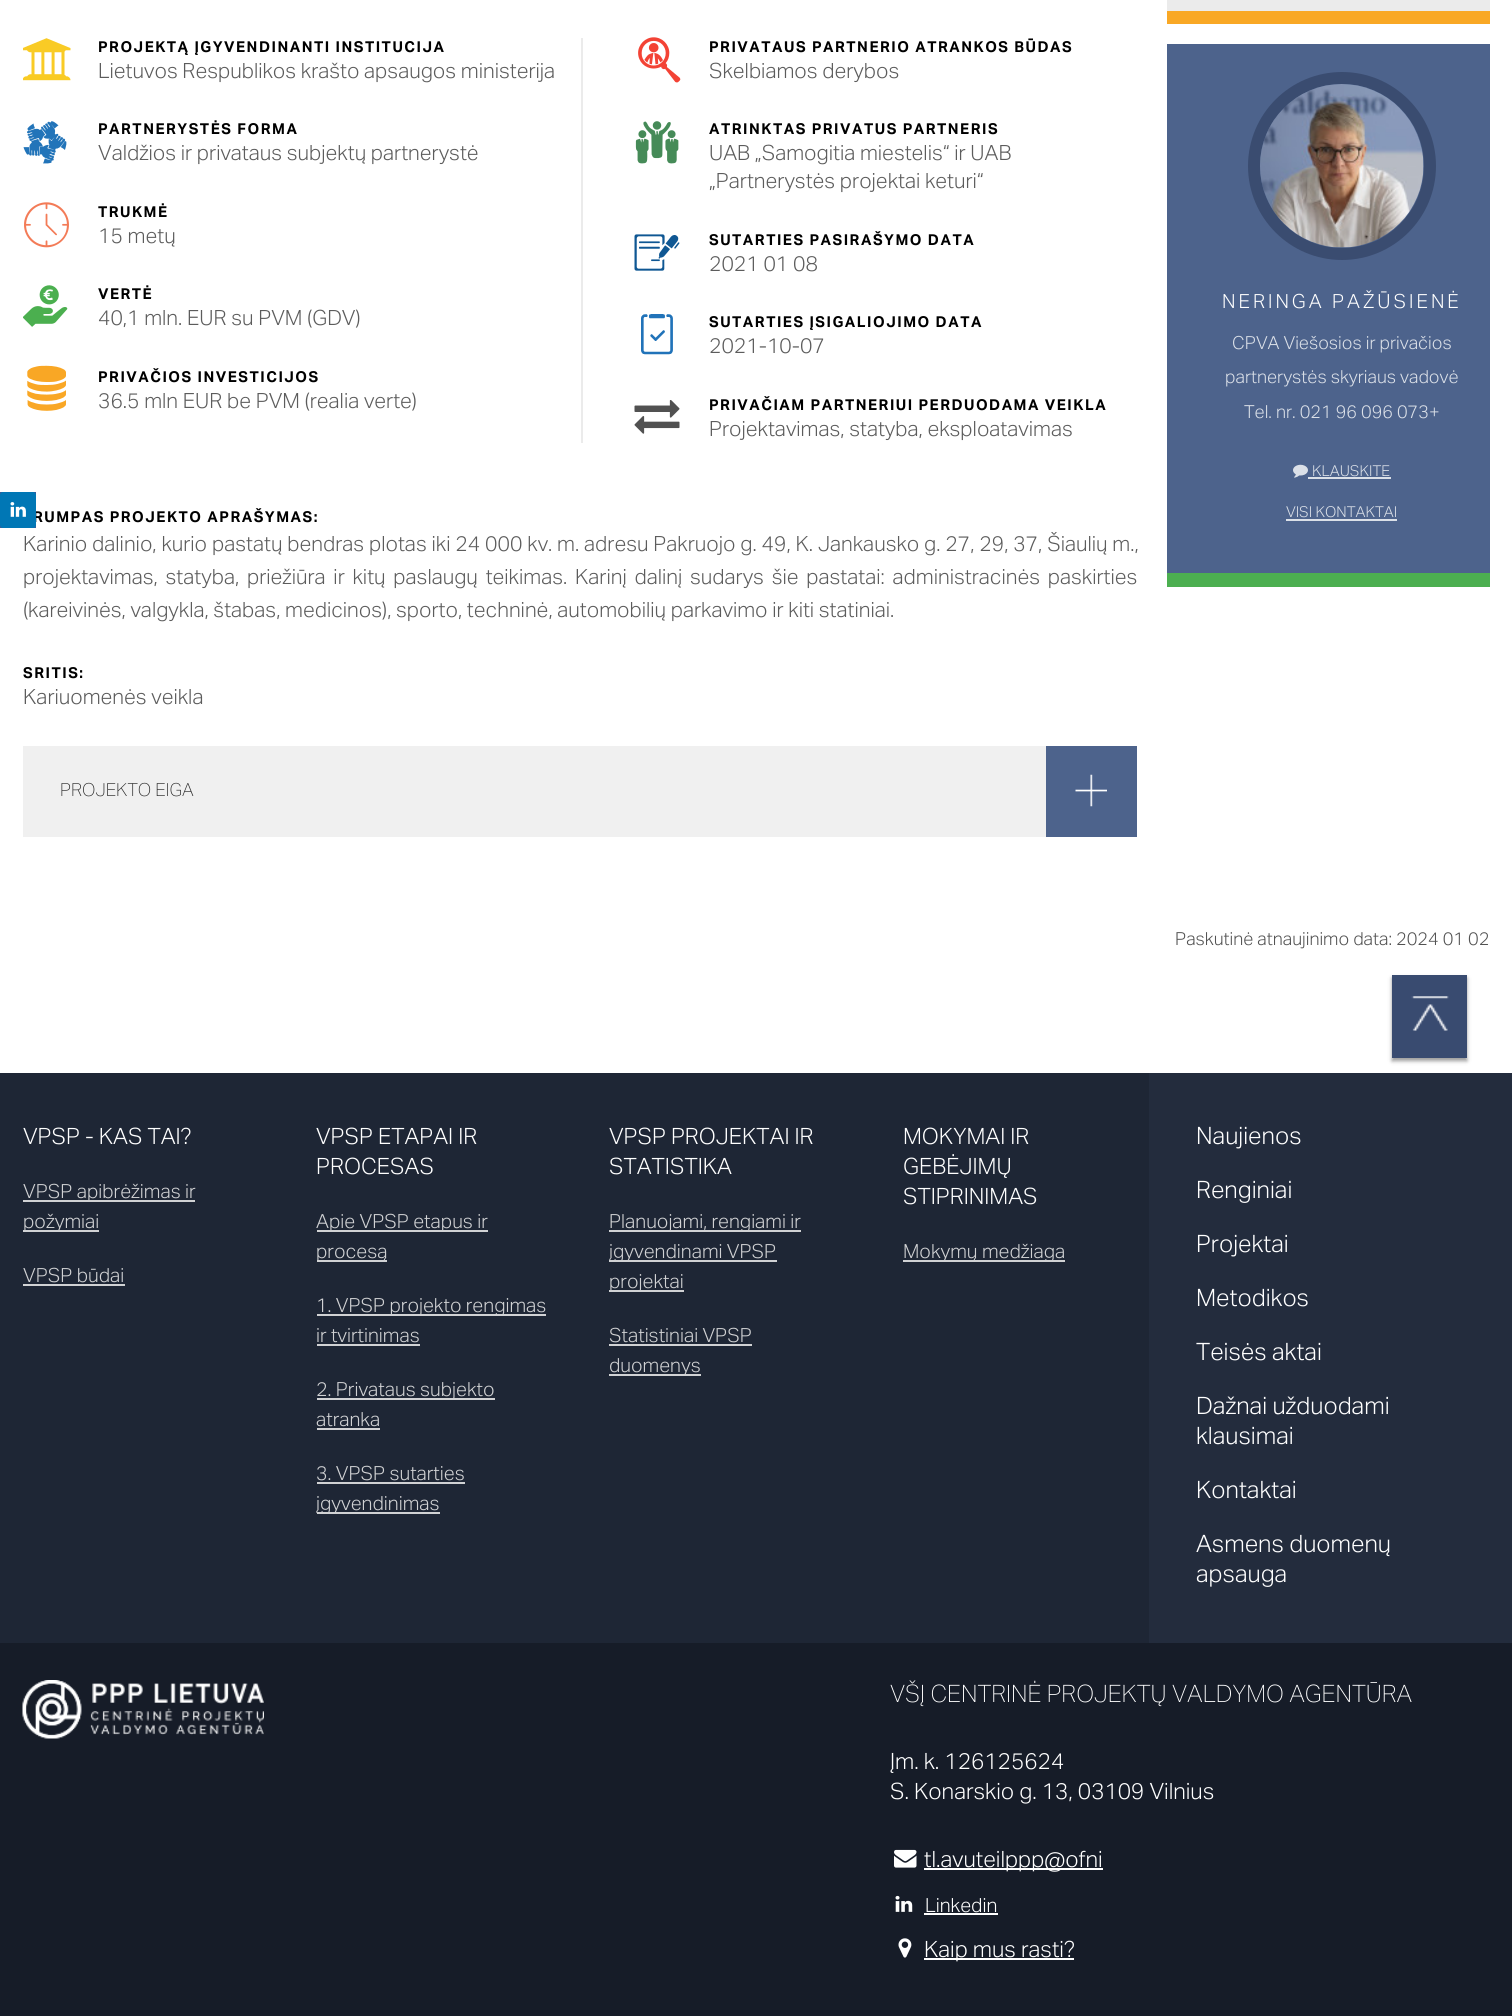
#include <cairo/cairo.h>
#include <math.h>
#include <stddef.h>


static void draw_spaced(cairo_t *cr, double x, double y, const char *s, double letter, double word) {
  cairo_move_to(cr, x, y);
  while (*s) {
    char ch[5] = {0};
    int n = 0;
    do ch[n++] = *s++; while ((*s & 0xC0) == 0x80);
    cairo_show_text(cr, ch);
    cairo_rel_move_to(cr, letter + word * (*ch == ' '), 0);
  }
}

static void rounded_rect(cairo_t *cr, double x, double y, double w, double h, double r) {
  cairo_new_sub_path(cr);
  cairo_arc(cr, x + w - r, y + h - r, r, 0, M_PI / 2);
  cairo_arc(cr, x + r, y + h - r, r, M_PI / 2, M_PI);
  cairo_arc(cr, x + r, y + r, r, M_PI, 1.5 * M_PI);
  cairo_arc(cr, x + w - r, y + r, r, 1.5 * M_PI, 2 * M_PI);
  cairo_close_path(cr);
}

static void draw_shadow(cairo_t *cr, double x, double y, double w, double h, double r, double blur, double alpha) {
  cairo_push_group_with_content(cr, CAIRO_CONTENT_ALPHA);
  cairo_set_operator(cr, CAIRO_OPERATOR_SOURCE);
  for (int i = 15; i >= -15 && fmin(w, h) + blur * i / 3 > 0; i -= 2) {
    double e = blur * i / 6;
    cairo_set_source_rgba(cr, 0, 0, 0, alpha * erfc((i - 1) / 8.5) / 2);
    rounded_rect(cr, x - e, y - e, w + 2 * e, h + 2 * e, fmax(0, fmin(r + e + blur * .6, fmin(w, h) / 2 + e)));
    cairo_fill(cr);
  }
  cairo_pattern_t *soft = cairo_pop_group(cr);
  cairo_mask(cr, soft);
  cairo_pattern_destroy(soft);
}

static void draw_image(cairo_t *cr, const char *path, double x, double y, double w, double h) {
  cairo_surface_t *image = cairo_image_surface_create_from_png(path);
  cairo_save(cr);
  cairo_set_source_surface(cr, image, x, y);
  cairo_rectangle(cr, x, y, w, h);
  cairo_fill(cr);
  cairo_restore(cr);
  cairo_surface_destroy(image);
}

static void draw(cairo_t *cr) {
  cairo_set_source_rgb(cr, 1, 1, 1);
  cairo_paint(cr);
  draw_image(cr, "images/2.png", 23, 38, 48, 43);
  draw_image(cr, "images/3.png", 23, 121, 44, 43);
  draw_image(cr, "images/4.png", 24, 202, 45, 46);
  draw_image(cr, "images/5.png", 23, 285, 45, 42);
  draw_image(cr, "images/6.png", 27, 365, 39, 46);
  cairo_set_source_rgb(cr, 235 / 255.0, 235 / 255.0, 235 / 255.0);
  cairo_rectangle(cr, 581, 38, 2, 405);
  cairo_fill(cr);
  draw_image(cr, "images/7.png", 638, 37, 43, 46);
  draw_image(cr, "images/8.png", 635, 121, 44, 43);
  draw_image(cr, "images/9.png", 634, 234, 46, 37);
  draw_image(cr, "images/10.png", 641, 314, 32, 41);
  draw_image(cr, "images/11.png", 634, 400, 46, 34);
  cairo_set_source_rgb(cr, 240 / 255.0, 240 / 255.0, 240 / 255.0);
  cairo_rectangle(cr, 23, 746, 1023, 91);
  cairo_fill(cr);
  cairo_set_source_rgb(cr, 77 / 255.0, 99 / 255.0, 140 / 255.0);
  cairo_rectangle(cr, 1046, 746, 91, 91);
  cairo_fill(cr);
  draw_image(cr, "images/12.png", 1075, 774, 32, 33);
  cairo_set_source_rgb(cr, 235 / 255.0, 235 / 255.0, 235 / 255.0);
  cairo_rectangle(cr, 1167, 0, 323, 11);
  cairo_fill(cr);
  cairo_set_source_rgb(cr, 249 / 255.0, 168 / 255.0, 37 / 255.0);
  cairo_rectangle(cr, 1167, 11, 323, 13);
  cairo_fill(cr);
  cairo_set_source_rgb(cr, 77 / 255.0, 99 / 255.0, 140 / 255.0);
  cairo_rectangle(cr, 1167, 44, 323, 529);
  cairo_fill(cr);
  cairo_set_source_rgb(cr, 76 / 255.0, 175 / 255.0, 80 / 255.0);
  cairo_rectangle(cr, 1167, 573, 323, 14);
  cairo_fill(cr);
  cairo_arc(cr, 1342, 166, 88, 0, 2 * M_PI);
  cairo_set_source_rgb(cr, 58 / 255.0, 76 / 255.0, 112 / 255.0);
  cairo_set_line_width(cr, 12);
  cairo_stroke(cr);
  draw_image(cr, "images/13.png", 1260, 84, 164, 164);
  draw_image(cr, "images/14.png", 1293, 464, 15, 14);
  cairo_set_source_rgb(cr, 219 / 255.0, 224 / 255.0, 232 / 255.0);
  cairo_rectangle(cr, 1308, 477, 83, 2);
  cairo_fill(cr);
  cairo_rectangle(cr, 1286, 519, 111, 2);
  cairo_fill(cr);
  cairo_set_source_rgb(cr, 0, 0, 0);
  draw_shadow(cr, 1392, 978, 75, 83, 0, 2, 0.4);
  cairo_set_source_rgb(cr, 57 / 255.0, 75 / 255.0, 112 / 255.0);
  cairo_rectangle(cr, 1392, 975, 75, 83);
  cairo_fill(cr);
  draw_image(cr, "images/15.png", 1411, 996, 38, 35);
  cairo_set_source_rgb(cr, 30 / 255.0, 38 / 255.0, 53 / 255.0);
  cairo_rectangle(cr, 0, 1073, 1149, 570);
  cairo_fill(cr);
  cairo_set_source_rgb(cr, 35 / 255.0, 44 / 255.0, 61 / 255.0);
  cairo_rectangle(cr, 1149, 1073, 363, 570);
  cairo_fill(cr);
  cairo_set_source_rgb(cr, 209 / 255.0, 210 / 255.0, 212 / 255.0);
  cairo_rectangle(cr, 23, 1200, 172, 2);
  cairo_fill(cr);
  cairo_rectangle(cr, 23, 1230, 76, 2);
  cairo_fill(cr);
  cairo_rectangle(cr, 23, 1284, 102, 2);
  cairo_fill(cr);
  cairo_rectangle(cr, 317, 1230, 171, 2);
  cairo_fill(cr);
  cairo_rectangle(cr, 317, 1260, 70, 2);
  cairo_fill(cr);
  cairo_rectangle(cr, 317, 1314, 229, 2);
  cairo_fill(cr);
  cairo_rectangle(cr, 317, 1344, 103, 2);
  cairo_fill(cr);
  cairo_rectangle(cr, 317, 1398, 178, 2);
  cairo_fill(cr);
  cairo_rectangle(cr, 317, 1428, 63, 2);
  cairo_fill(cr);
  cairo_rectangle(cr, 317, 1482, 148, 2);
  cairo_fill(cr);
  cairo_rectangle(cr, 317, 1512, 123, 2);
  cairo_fill(cr);
  cairo_rectangle(cr, 609, 1230, 192, 2);
  cairo_fill(cr);
  cairo_rectangle(cr, 609, 1260, 168, 2);
  cairo_fill(cr);
  cairo_rectangle(cr, 609, 1290, 75, 2);
  cairo_fill(cr);
  cairo_rectangle(cr, 609, 1344, 143, 2);
  cairo_fill(cr);
  cairo_rectangle(cr, 609, 1374, 92, 2);
  cairo_fill(cr);
  cairo_rectangle(cr, 903, 1260, 162, 2);
  cairo_fill(cr);
  cairo_set_source_rgb(cr, 22 / 255.0, 28 / 255.0, 40 / 255.0);
  cairo_rectangle(cr, 0, 1643, 1512, 373);
  cairo_fill(cr);
  draw_image(cr, "images/16.png", 22, 1680, 242, 59);
  draw_image(cr, "images/17.png", 894, 1849, 23, 19);
  cairo_set_source_rgb(cr, 1, 1, 1);
  cairo_rectangle(cr, 924, 1868, 179, 2);
  cairo_fill(cr);
  draw_image(cr, "images/18.png", 895, 1895, 18, 17);
  cairo_rectangle(cr, 924, 1913, 74, 2);
  cairo_fill(cr);
  draw_image(cr, "images/19.png", 898, 1938, 14, 20);
  cairo_rectangle(cr, 924, 1958, 150, 2);
  cairo_fill(cr);
  cairo_select_font_face(cr, "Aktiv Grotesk", CAIRO_FONT_SLANT_NORMAL, CAIRO_FONT_WEIGHT_BOLD);
  cairo_set_font_size(cr, 15);
  cairo_set_source_rgb(cr, 0, 0, 0);
  draw_spaced(cr, 98, 52, "PROJEKTĄ ĮGYVENDINANTI INSTITUCIJA", 1.5, 0);
  cairo_select_font_face(cr, "Aktiv Grotesk Light", CAIRO_FONT_SLANT_NORMAL, CAIRO_FONT_WEIGHT_NORMAL);
  cairo_set_font_size(cr, 21);
  cairo_set_source_rgb(cr, 92 / 255.0, 92 / 255.0, 92 / 255.0);
  cairo_move_to(cr, 98, 78);
  cairo_show_text(cr, "Lietuvos Respublikos krašto apsaugos ministerija");
  cairo_select_font_face(cr, "Aktiv Grotesk", CAIRO_FONT_SLANT_NORMAL, CAIRO_FONT_WEIGHT_BOLD);
  cairo_set_font_size(cr, 15);
  cairo_set_source_rgb(cr, 0, 0, 0);
  draw_spaced(cr, 98, 134, "PARTNERYSTĖS FORMA", 1.5, 0);
  cairo_select_font_face(cr, "Aktiv Grotesk Light", CAIRO_FONT_SLANT_NORMAL, CAIRO_FONT_WEIGHT_NORMAL);
  cairo_set_font_size(cr, 21);
  cairo_set_source_rgb(cr, 92 / 255.0, 92 / 255.0, 92 / 255.0);
  cairo_move_to(cr, 98, 160);
  cairo_show_text(cr, "Valdžios ir privataus subjektų partnerystė");
  cairo_select_font_face(cr, "Aktiv Grotesk", CAIRO_FONT_SLANT_NORMAL, CAIRO_FONT_WEIGHT_BOLD);
  cairo_set_font_size(cr, 15);
  cairo_set_source_rgb(cr, 0, 0, 0);
  draw_spaced(cr, 98, 217, "TRUKMĖ", 1.5, 0);
  cairo_select_font_face(cr, "Aktiv Grotesk Light", CAIRO_FONT_SLANT_NORMAL, CAIRO_FONT_WEIGHT_NORMAL);
  cairo_set_font_size(cr, 21);
  cairo_set_source_rgb(cr, 92 / 255.0, 92 / 255.0, 92 / 255.0);
  cairo_move_to(cr, 98, 243);
  cairo_show_text(cr, "15 metų");
  cairo_select_font_face(cr, "Aktiv Grotesk", CAIRO_FONT_SLANT_NORMAL, CAIRO_FONT_WEIGHT_BOLD);
  cairo_set_font_size(cr, 15);
  cairo_set_source_rgb(cr, 0, 0, 0);
  draw_spaced(cr, 98, 299, "VERTĖ", 1.5, 0);
  cairo_select_font_face(cr, "Aktiv Grotesk Light", CAIRO_FONT_SLANT_NORMAL, CAIRO_FONT_WEIGHT_NORMAL);
  cairo_set_font_size(cr, 21);
  cairo_set_source_rgb(cr, 92 / 255.0, 92 / 255.0, 92 / 255.0);
  cairo_move_to(cr, 98, 325);
  cairo_show_text(cr, "40,1 mln. EUR su PVM (GDV)");
  cairo_select_font_face(cr, "Aktiv Grotesk", CAIRO_FONT_SLANT_NORMAL, CAIRO_FONT_WEIGHT_BOLD);
  cairo_set_font_size(cr, 15);
  cairo_set_source_rgb(cr, 0, 0, 0);
  draw_spaced(cr, 98, 382, "PRIVAČIOS INVESTICIJOS", 1.5, 0);
  cairo_select_font_face(cr, "Aktiv Grotesk Light", CAIRO_FONT_SLANT_NORMAL, CAIRO_FONT_WEIGHT_NORMAL);
  cairo_set_font_size(cr, 21);
  cairo_set_source_rgb(cr, 92 / 255.0, 92 / 255.0, 92 / 255.0);
  cairo_move_to(cr, 98, 408);
  cairo_show_text(cr, "36.5 mln EUR be PVM (realia verte)");
  cairo_select_font_face(cr, "Aktiv Grotesk", CAIRO_FONT_SLANT_NORMAL, CAIRO_FONT_WEIGHT_BOLD);
  cairo_set_font_size(cr, 15);
  cairo_set_source_rgb(cr, 0, 0, 0);
  draw_spaced(cr, 709, 52, "PRIVATAUS PARTNERIO ATRANKOS BŪDAS", 1.5, 0);
  cairo_select_font_face(cr, "Aktiv Grotesk Light", CAIRO_FONT_SLANT_NORMAL, CAIRO_FONT_WEIGHT_NORMAL);
  cairo_set_font_size(cr, 21);
  cairo_set_source_rgb(cr, 92 / 255.0, 92 / 255.0, 92 / 255.0);
  cairo_move_to(cr, 709, 78);
  cairo_show_text(cr, "Skelbiamos derybos");
  cairo_select_font_face(cr, "Aktiv Grotesk", CAIRO_FONT_SLANT_NORMAL, CAIRO_FONT_WEIGHT_BOLD);
  cairo_set_font_size(cr, 15);
  cairo_set_source_rgb(cr, 0, 0, 0);
  draw_spaced(cr, 709, 134, "ATRINKTAS PRIVATUS PARTNERIS", 1.5, 0);
  cairo_select_font_face(cr, "Aktiv Grotesk Light", CAIRO_FONT_SLANT_NORMAL, CAIRO_FONT_WEIGHT_NORMAL);
  cairo_set_font_size(cr, 21);
  cairo_set_source_rgb(cr, 92 / 255.0, 92 / 255.0, 92 / 255.0);
  cairo_move_to(cr, 709, 160);
  cairo_show_text(cr, "UAB „Samogitia miestelis“ ir UAB");
  cairo_move_to(cr, 709, 188);
  cairo_show_text(cr, "„Partnerystės projektai keturi“");
  cairo_select_font_face(cr, "Aktiv Grotesk", CAIRO_FONT_SLANT_NORMAL, CAIRO_FONT_WEIGHT_BOLD);
  cairo_set_font_size(cr, 15);
  cairo_set_source_rgb(cr, 0, 0, 0);
  draw_spaced(cr, 709, 245, "SUTARTIES PASIRAŠYMO DATA", 1.5, 0);
  cairo_select_font_face(cr, "Aktiv Grotesk Light", CAIRO_FONT_SLANT_NORMAL, CAIRO_FONT_WEIGHT_NORMAL);
  cairo_set_font_size(cr, 21);
  cairo_set_source_rgb(cr, 92 / 255.0, 92 / 255.0, 92 / 255.0);
  cairo_move_to(cr, 709, 271);
  cairo_show_text(cr, "2021 01 08");
  cairo_select_font_face(cr, "Aktiv Grotesk", CAIRO_FONT_SLANT_NORMAL, CAIRO_FONT_WEIGHT_BOLD);
  cairo_set_font_size(cr, 15);
  cairo_set_source_rgb(cr, 0, 0, 0);
  draw_spaced(cr, 709, 327, "SUTARTIES ĮSIGALIOJIMO DATA", 1.5, 0);
  cairo_select_font_face(cr, "Aktiv Grotesk Light", CAIRO_FONT_SLANT_NORMAL, CAIRO_FONT_WEIGHT_NORMAL);
  cairo_set_font_size(cr, 21);
  cairo_set_source_rgb(cr, 92 / 255.0, 92 / 255.0, 92 / 255.0);
  cairo_move_to(cr, 709, 353);
  cairo_show_text(cr, "2021-10-07");
  cairo_select_font_face(cr, "Aktiv Grotesk", CAIRO_FONT_SLANT_NORMAL, CAIRO_FONT_WEIGHT_BOLD);
  cairo_set_font_size(cr, 15);
  cairo_set_source_rgb(cr, 0, 0, 0);
  draw_spaced(cr, 709, 410, "PRIVAČIAM PARTNERIUI PERDUODAMA VEIKLA", 1.5, 0);
  cairo_select_font_face(cr, "Aktiv Grotesk Light", CAIRO_FONT_SLANT_NORMAL, CAIRO_FONT_WEIGHT_NORMAL);
  cairo_set_font_size(cr, 21);
  cairo_set_source_rgb(cr, 92 / 255.0, 92 / 255.0, 92 / 255.0);
  cairo_move_to(cr, 709, 436);
  cairo_show_text(cr, "Projektavimas, statyba, eksploatavimas");
  cairo_select_font_face(cr, "Aktiv Grotesk", CAIRO_FONT_SLANT_NORMAL, CAIRO_FONT_WEIGHT_BOLD);
  cairo_set_font_size(cr, 15);
  cairo_set_source_rgb(cr, 0, 0, 0);
  draw_spaced(cr, 33, 522, "RUMPAS PROJEKTO APRAŠYMAS:", 1.5, 0);
  cairo_select_font_face(cr, "Aktiv Grotesk Light", CAIRO_FONT_SLANT_NORMAL, CAIRO_FONT_WEIGHT_NORMAL);
  cairo_set_font_size(cr, 21);
  cairo_set_source_rgb(cr, 92 / 255.0, 92 / 255.0, 92 / 255.0);
  draw_spaced(cr, 23, 551, "Karinio dalinio, kurio pastatų bendras plotas iki 24 000 kv. m. adresu Pakruojo g. 49, K. Jankausko g. 27, 29, 37, Šiaulių m.,", 0, 0.2);
  draw_spaced(cr, 23, 584, "projektavimas, statyba, priežiūra ir kitų paslaugų teikimas. Karinį dalinį sudarys šie pastatai: administracinės paskirties", 0, 3.1);
  cairo_move_to(cr, 23, 617);
  cairo_show_text(cr, "(kareivinės, valgykla, štabas, medicinos), sporto, techninė, automobilių parkavimo ir kiti statiniai.");
  cairo_select_font_face(cr, "Aktiv Grotesk", CAIRO_FONT_SLANT_NORMAL, CAIRO_FONT_WEIGHT_BOLD);
  cairo_set_font_size(cr, 15);
  cairo_set_source_rgb(cr, 0, 0, 0);
  draw_spaced(cr, 23, 678, "SRITIS:", 1.5, 0);
  cairo_select_font_face(cr, "Aktiv Grotesk Light", CAIRO_FONT_SLANT_NORMAL, CAIRO_FONT_WEIGHT_NORMAL);
  cairo_set_font_size(cr, 21);
  cairo_set_source_rgb(cr, 92 / 255.0, 92 / 255.0, 92 / 255.0);
  cairo_move_to(cr, 23, 704);
  cairo_show_text(cr, "Kariuomenės veikla");
  cairo_select_font_face(cr, "Aktiv Grotesk Thin", CAIRO_FONT_SLANT_NORMAL, CAIRO_FONT_WEIGHT_NORMAL);
  cairo_set_font_size(cr, 18);
  cairo_set_source_rgb(cr, 38 / 255.0, 38 / 255.0, 38 / 255.0);
  cairo_move_to(cr, 60, 796);
  cairo_show_text(cr, "PROJEKTO EIGA");
  cairo_select_font_face(cr, "Aktiv Grotesk Light", CAIRO_FONT_SLANT_NORMAL, CAIRO_FONT_WEIGHT_NORMAL);
  cairo_set_font_size(cr, 19.5);
  cairo_set_source_rgb(cr, 1, 1, 1);
  draw_spaced(cr, 1222, 308, "NERINGA PAŽŪSIENĖ", 3, 0);
  cairo_set_font_size(cr, 18);
  cairo_set_source_rgb(cr, 219 / 255.0, 224 / 255.0, 232 / 255.0);
  cairo_move_to(cr, 1232, 349);
  cairo_show_text(cr, "CPVA Viešosios ir privačios");
  cairo_move_to(cr, 1225, 383);
  cairo_show_text(cr, "partnerystės skyriaus vadovė");
  cairo_move_to(cr, 1244, 418);
  cairo_show_text(cr, "Tel. nr. 021 96 096 073+");
  cairo_set_font_size(cr, 15);
  cairo_move_to(cr, 1312, 476);
  cairo_show_text(cr, "KLAUSKITE");
  cairo_move_to(cr, 1286, 517);
  cairo_show_text(cr, "VISI KONTAKTAI");
  cairo_set_source_rgb(cr, 59 / 255.0, 89 / 255.0, 153 / 255.0);
  cairo_rectangle(cr, 0, 492, 36, 36);
  cairo_fill(cr);
  cairo_set_source_rgb(cr, 0, 119 / 255.0, 181 / 255.0);
  rounded_rect(cr, 0, 492, 36, 36, 3);
  cairo_fill(cr);
  draw_image(cr, "images/1.png", 10, 502, 16, 15);
  cairo_set_font_size(cr, 18);
  cairo_set_source_rgb(cr, 82 / 255.0, 82 / 255.0, 82 / 255.0);
  cairo_move_to(cr, 1175, 945);
  cairo_show_text(cr, "Paskutinė atnaujinimo data: 2024 01 02");
  cairo_set_font_size(cr, 22.5);
  cairo_set_source_rgb(cr, 1, 1, 1);
  cairo_move_to(cr, 23, 1144);
  cairo_show_text(cr, "VPSP - KAS TAI?");
  cairo_set_font_size(cr, 19.5);
  cairo_set_source_rgb(cr, 209 / 255.0, 210 / 255.0, 212 / 255.0);
  cairo_move_to(cr, 23, 1198);
  cairo_show_text(cr, "VPSP apibrėžimas ir");
  cairo_move_to(cr, 23, 1228);
  cairo_show_text(cr, "požymiai");
  cairo_move_to(cr, 23, 1282);
  cairo_show_text(cr, "VPSP būdai");
  cairo_set_font_size(cr, 22.5);
  cairo_set_source_rgb(cr, 1, 1, 1);
  cairo_move_to(cr, 316, 1144);
  cairo_show_text(cr, "VPSP ETAPAI IR");
  cairo_move_to(cr, 316, 1174);
  cairo_show_text(cr, "PROCESAS");
  cairo_set_font_size(cr, 19.5);
  cairo_set_source_rgb(cr, 209 / 255.0, 210 / 255.0, 212 / 255.0);
  cairo_move_to(cr, 316, 1228);
  cairo_show_text(cr, "Apie VPSP etapus ir");
  cairo_move_to(cr, 316, 1258);
  cairo_show_text(cr, "procesą");
  cairo_move_to(cr, 316, 1312);
  cairo_show_text(cr, "1. VPSP projekto rengimas");
  cairo_move_to(cr, 316, 1342);
  cairo_show_text(cr, "ir tvirtinimas");
  cairo_move_to(cr, 316, 1396);
  cairo_show_text(cr, "2. Privataus subjekto");
  cairo_move_to(cr, 316, 1426);
  cairo_show_text(cr, "atranka");
  cairo_move_to(cr, 316, 1480);
  cairo_show_text(cr, "3. VPSP sutarties");
  cairo_move_to(cr, 316, 1510);
  cairo_show_text(cr, "įgyvendinimas");
  cairo_set_font_size(cr, 22.5);
  cairo_set_source_rgb(cr, 1, 1, 1);
  cairo_move_to(cr, 609, 1144);
  cairo_show_text(cr, "VPSP PROJEKTAI IR");
  cairo_move_to(cr, 609, 1174);
  cairo_show_text(cr, "STATISTIKA");
  cairo_set_font_size(cr, 19.5);
  cairo_set_source_rgb(cr, 209 / 255.0, 210 / 255.0, 212 / 255.0);
  cairo_move_to(cr, 609, 1228);
  cairo_show_text(cr, "Planuojami, rengiami ir");
  cairo_move_to(cr, 609, 1258);
  cairo_show_text(cr, "įgyvendinami VPSP");
  cairo_move_to(cr, 609, 1288);
  cairo_show_text(cr, "projektai");
  cairo_move_to(cr, 609, 1342);
  cairo_show_text(cr, "Statistiniai VPSP");
  cairo_move_to(cr, 609, 1372);
  cairo_show_text(cr, "duomenys");
  cairo_set_font_size(cr, 22.5);
  cairo_set_source_rgb(cr, 1, 1, 1);
  cairo_move_to(cr, 903, 1144);
  cairo_show_text(cr, "MOKYMAI IR");
  cairo_move_to(cr, 903, 1174);
  cairo_show_text(cr, "GEBĖJIMŲ");
  cairo_move_to(cr, 903, 1204);
  cairo_show_text(cr, "STIPRINIMAS");
  cairo_set_font_size(cr, 19.5);
  cairo_set_source_rgb(cr, 209 / 255.0, 210 / 255.0, 212 / 255.0);
  cairo_move_to(cr, 903, 1258);
  cairo_show_text(cr, "Mokymų medžiaga");
  cairo_set_font_size(cr, 24);
  cairo_set_source_rgb(cr, 1, 1, 1);
  cairo_move_to(cr, 1196, 1144);
  cairo_show_text(cr, "Naujienos");
  cairo_move_to(cr, 1196, 1198);
  cairo_show_text(cr, "Renginiai");
  cairo_move_to(cr, 1196, 1252);
  cairo_show_text(cr, "Projektai");
  cairo_move_to(cr, 1196, 1306);
  cairo_show_text(cr, "Metodikos");
  cairo_move_to(cr, 1196, 1360);
  cairo_show_text(cr, "Teisės aktai");
  cairo_move_to(cr, 1196, 1414);
  cairo_show_text(cr, "Dažnai užduodami");
  cairo_move_to(cr, 1196, 1444);
  cairo_show_text(cr, "klausimai");
  cairo_move_to(cr, 1196, 1498);
  cairo_show_text(cr, "Kontaktai");
  cairo_move_to(cr, 1196, 1552);
  cairo_show_text(cr, "Asmens duomenų");
  cairo_move_to(cr, 1196, 1582);
  cairo_show_text(cr, "apsauga");
  cairo_select_font_face(cr, "Aktiv Grotesk Thin", CAIRO_FONT_SLANT_NORMAL, CAIRO_FONT_WEIGHT_NORMAL);
  cairo_move_to(cr, 890, 1702);
  cairo_show_text(cr, "VŠĮ CENTRINĖ PROJEKTŲ VALDYMO AGENTŪRA");
  cairo_select_font_face(cr, "Aktiv Grotesk Light", CAIRO_FONT_SLANT_NORMAL, CAIRO_FONT_WEIGHT_NORMAL);
  cairo_set_font_size(cr, 22.5);
  cairo_move_to(cr, 890, 1769);
  cairo_show_text(cr, "Įm. k. 126125624");
  cairo_move_to(cr, 890, 1799);
  cairo_show_text(cr, "S. Konarskio g. 13, 03109 Vilnius");
  cairo_move_to(cr, 924, 1867);
  cairo_show_text(cr, "tl.avuteilppp@ofni");
  cairo_set_font_size(cr, 19.5);
  cairo_move_to(cr, 925, 1912);
  cairo_show_text(cr, "Linkedin");
  cairo_set_font_size(cr, 22.5);
  cairo_move_to(cr, 924, 1957);
  cairo_show_text(cr, "Kaip mus rasti?");
}

int main(void) {
  cairo_surface_t *surface = cairo_image_surface_create(CAIRO_FORMAT_RGB24, 1512, 2016);
  cairo_t *cr = cairo_create(surface);
  cairo_font_options_t *options = cairo_font_options_create();
  cairo_font_options_set_hint_metrics(options, CAIRO_HINT_METRICS_OFF);
  cairo_font_options_set_hint_style(options, CAIRO_HINT_STYLE_NONE);
  cairo_set_font_options(cr, options);
  cairo_set_miter_limit(cr, 4);
  draw(cr);
  cairo_surface_write_to_png(surface, "out.png");
  cairo_font_options_destroy(options);
  cairo_destroy(cr);
  cairo_surface_destroy(surface);
  return 0;
}
